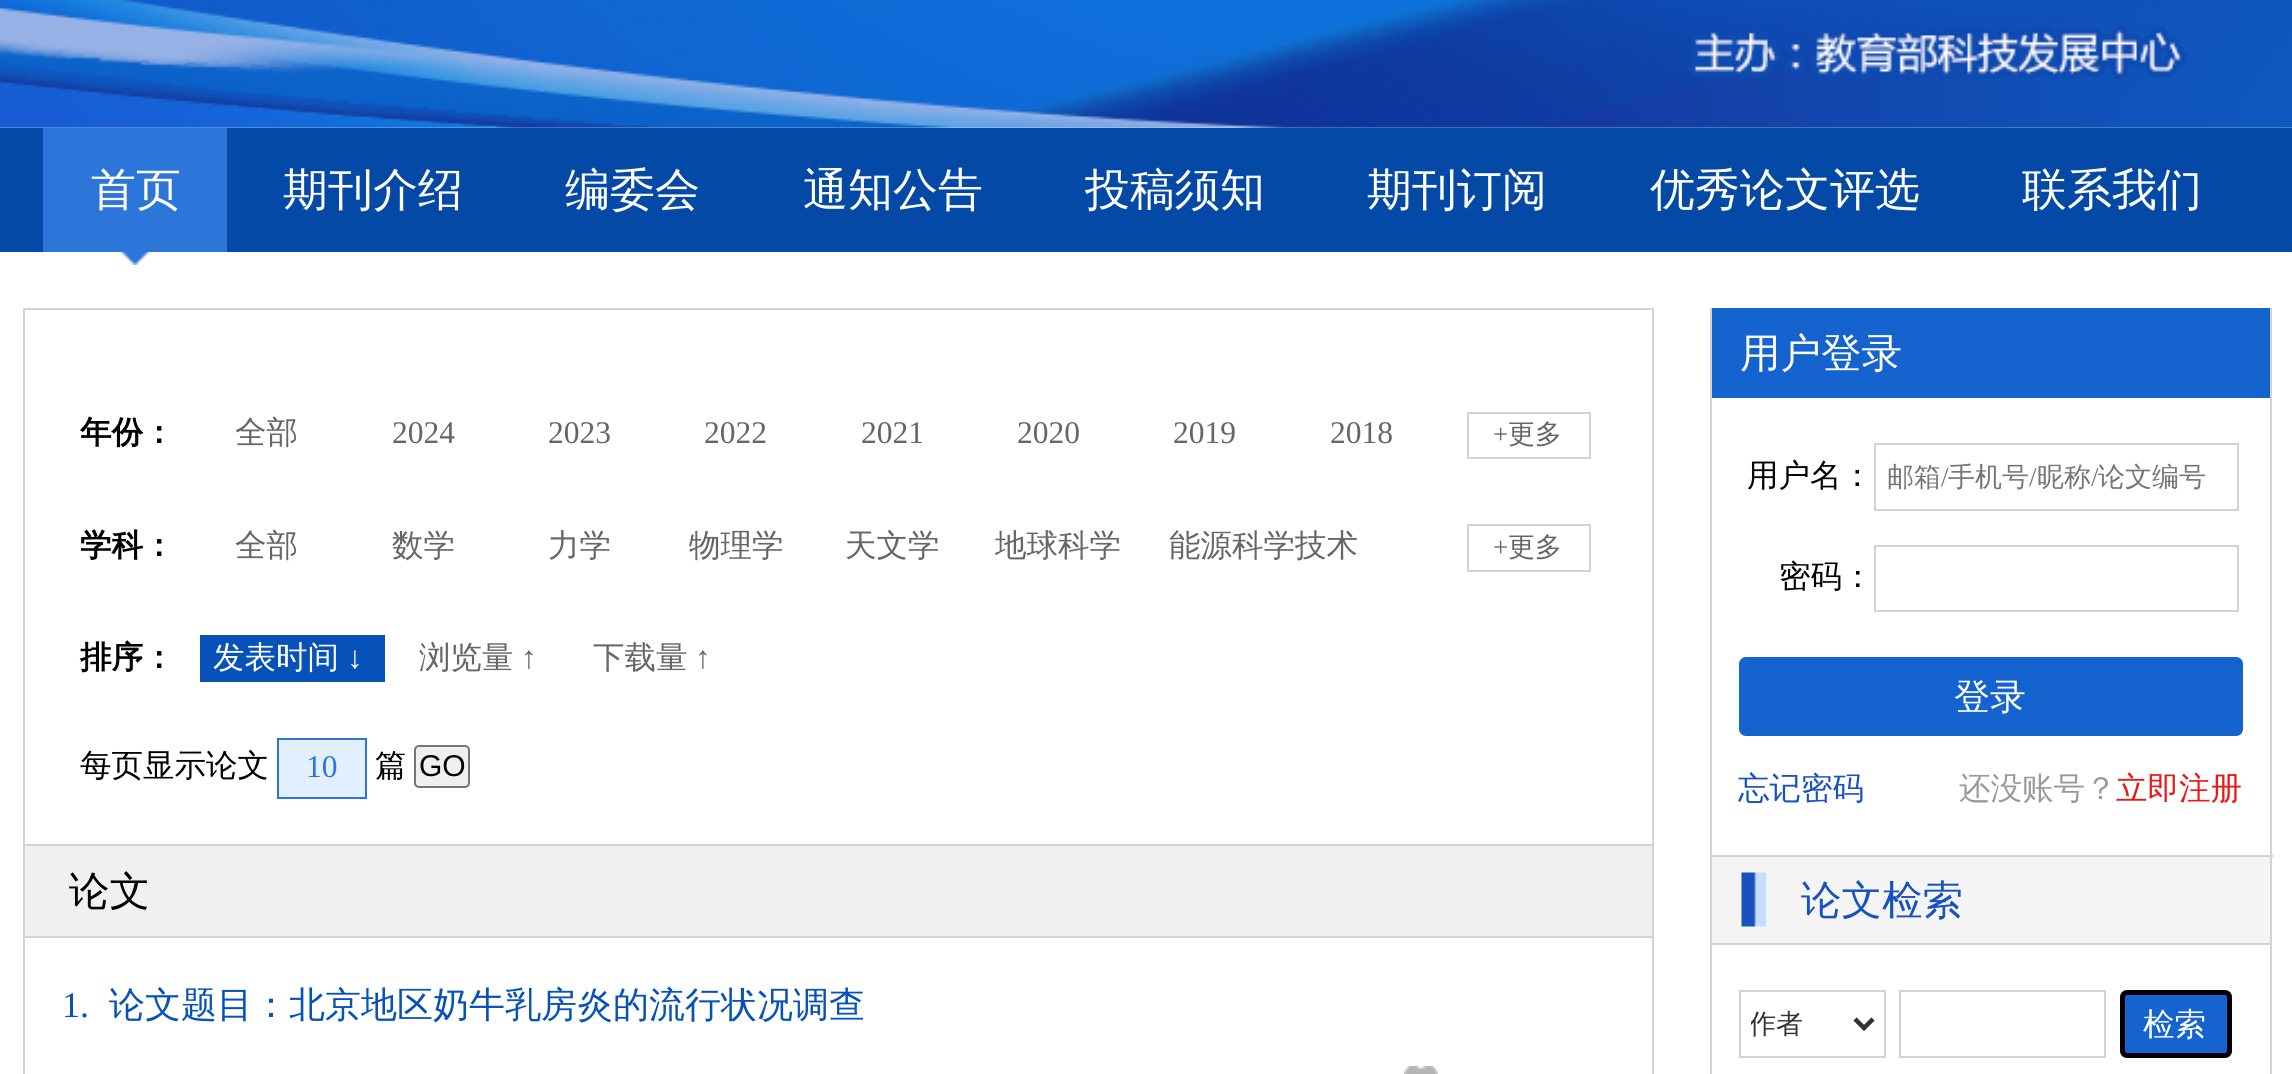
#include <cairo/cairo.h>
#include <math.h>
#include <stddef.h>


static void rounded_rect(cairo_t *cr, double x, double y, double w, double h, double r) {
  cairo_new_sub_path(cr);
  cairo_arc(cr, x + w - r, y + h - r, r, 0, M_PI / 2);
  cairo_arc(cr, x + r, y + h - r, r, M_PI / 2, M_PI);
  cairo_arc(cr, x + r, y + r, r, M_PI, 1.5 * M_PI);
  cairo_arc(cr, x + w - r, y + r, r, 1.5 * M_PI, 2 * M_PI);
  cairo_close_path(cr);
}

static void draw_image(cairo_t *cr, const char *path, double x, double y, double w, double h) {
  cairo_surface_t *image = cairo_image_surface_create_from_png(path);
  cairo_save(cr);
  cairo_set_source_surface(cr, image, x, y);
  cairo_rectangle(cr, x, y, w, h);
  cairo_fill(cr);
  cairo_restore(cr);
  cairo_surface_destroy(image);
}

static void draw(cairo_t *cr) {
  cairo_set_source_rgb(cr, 1, 1, 1);
  cairo_paint(cr);
  draw_image(cr, "images/1.png", 0, 0, 2292, 128);
  cairo_set_source_rgb(cr, 4 / 255.0, 73 / 255.0, 166 / 255.0);
  cairo_rectangle(cr, 0, 128, 2292, 124);
  cairo_fill(cr);
  cairo_set_source_rgb(cr, 43 / 255.0, 118 / 255.0, 216 / 255.0);
  cairo_rectangle(cr, 43, 128, 184, 124);
  cairo_fill(cr);
  draw_image(cr, "images/2.png", 121, 252, 28, 13);
  cairo_rectangle(cr, 24, 309, 1629, 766);
  cairo_set_source_rgb(cr, 211 / 255.0, 211 / 255.0, 211 / 255.0);
  cairo_stroke(cr);
  cairo_rectangle(cr, 1468, 413, 122, 45);
  cairo_stroke(cr);
  cairo_rectangle(cr, 1468, 525, 122, 46);
  cairo_stroke(cr);
  cairo_set_source_rgb(cr, 6 / 255.0, 82 / 255.0, 184 / 255.0);
  cairo_rectangle(cr, 200, 635, 185, 47);
  cairo_fill(cr);
  cairo_set_source_rgb(cr, 226 / 255.0, 239 / 255.0, 1);
  cairo_rectangle(cr, 278, 739, 88, 59);
  cairo_fill_preserve(cr);
  cairo_set_source_rgb(cr, 43 / 255.0, 118 / 255.0, 216 / 255.0);
  cairo_stroke(cr);
  cairo_set_source_rgb(cr, 239 / 255.0, 239 / 255.0, 239 / 255.0);
  rounded_rect(cr, 415, 746, 54, 41, 4);
  cairo_fill_preserve(cr);
  cairo_set_source_rgb(cr, 118 / 255.0, 118 / 255.0, 118 / 255.0);
  cairo_stroke(cr);
  cairo_set_source_rgb(cr, 240 / 255.0, 240 / 255.0, 240 / 255.0);
  cairo_rectangle(cr, 25, 846, 1627, 90);
  cairo_fill(cr);
  cairo_set_source_rgb(cr, 211 / 255.0, 211 / 255.0, 211 / 255.0);
  cairo_rectangle(cr, 25, 844, 1627, 2);
  cairo_fill(cr);
  cairo_rectangle(cr, 25, 936, 1627, 2);
  cairo_fill(cr);
  draw_image(cr, "images/3.png", 1404, 1066, 34, 8);
  cairo_rectangle(cr, 2270, 308, 2, 766);
  cairo_fill(cr);
  cairo_rectangle(cr, 1710, 855, 563, 2);
  cairo_fill(cr);
  cairo_rectangle(cr, 1710, 308, 2, 766);
  cairo_fill(cr);
  cairo_set_source_rgb(cr, 20 / 255.0, 99 / 255.0, 206 / 255.0);
  cairo_rectangle(cr, 1712, 308, 558, 90);
  cairo_fill(cr);
  cairo_rectangle(cr, 1875, 444, 363, 66);
  cairo_set_source_rgb(cr, 211 / 255.0, 211 / 255.0, 211 / 255.0);
  cairo_stroke(cr);
  cairo_rectangle(cr, 1875, 546, 363, 65);
  cairo_stroke(cr);
  cairo_set_source_rgb(cr, 20 / 255.0, 99 / 255.0, 206 / 255.0);
  rounded_rect(cr, 1739, 657, 504, 79, 7);
  cairo_fill(cr);
  cairo_set_source_rgb(cr, 245 / 255.0, 245 / 255.0, 245 / 255.0);
  cairo_rectangle(cr, 1712, 857, 558, 86);
  cairo_fill(cr);
  draw_image(cr, "images/4.png", 1741, 872, 26, 55);
  cairo_set_source_rgb(cr, 211 / 255.0, 211 / 255.0, 211 / 255.0);
  cairo_rectangle(cr, 1712, 943, 558, 2);
  cairo_fill(cr);
  cairo_rectangle(cr, 1740, 991, 145, 66);
  cairo_stroke(cr);
  cairo_new_path(cr);
  cairo_move_to(cr, 1855, 1019);
  cairo_line_to(cr, 1864, 1028);
  cairo_line_to(cr, 1873, 1019);
  cairo_set_source_rgb(cr, 51 / 255.0, 51 / 255.0, 51 / 255.0);
  cairo_set_line_width(cr, 4.5);
  cairo_stroke(cr);
  cairo_rectangle(cr, 1900, 991, 205, 66);
  cairo_set_source_rgb(cr, 211 / 255.0, 211 / 255.0, 211 / 255.0);
  cairo_set_line_width(cr, 2);
  cairo_stroke(cr);
  cairo_set_source_rgb(cr, 20 / 255.0, 99 / 255.0, 206 / 255.0);
  rounded_rect(cr, 2122.5, 992.5, 107, 63, 4.5);
  cairo_fill_preserve(cr);
  cairo_set_source_rgb(cr, 0, 0, 0);
  cairo_set_line_width(cr, 5);
  cairo_stroke(cr);
  cairo_select_font_face(cr, "WenQuanYi Zen Hei Medium", CAIRO_FONT_SLANT_NORMAL, CAIRO_FONT_WEIGHT_NORMAL);
  cairo_set_font_size(cr, 45);
  cairo_set_source_rgb(cr, 1, 1, 1);
  cairo_move_to(cr, 91, 205);
  cairo_show_text(cr, "首页");
  cairo_move_to(cr, 283, 205);
  cairo_show_text(cr, "期刊介绍");
  cairo_move_to(cr, 565, 205);
  cairo_show_text(cr, "编委会");
  cairo_move_to(cr, 803, 205);
  cairo_show_text(cr, "通知公告");
  cairo_move_to(cr, 1085, 205);
  cairo_show_text(cr, "投稿须知");
  cairo_move_to(cr, 1367, 205);
  cairo_show_text(cr, "期刊订阅");
  cairo_move_to(cr, 1650, 205);
  cairo_show_text(cr, "优秀论文评选");
  cairo_move_to(cr, 2022, 205);
  cairo_show_text(cr, "联系我们");
  cairo_select_font_face(cr, "WenQuanYi Zen Hei", CAIRO_FONT_SLANT_NORMAL, CAIRO_FONT_WEIGHT_BOLD);
  cairo_set_font_size(cr, 31.5);
  cairo_set_source_rgb(cr, 0, 0, 0);
  cairo_move_to(cr, 80, 443);
  cairo_show_text(cr, "年份：");
  cairo_select_font_face(cr, "WenQuanYi Zen Hei Medium", CAIRO_FONT_SLANT_NORMAL, CAIRO_FONT_WEIGHT_NORMAL);
  cairo_set_source_rgb(cr, 102 / 255.0, 102 / 255.0, 102 / 255.0);
  cairo_move_to(cr, 235, 443);
  cairo_show_text(cr, "全部");
  cairo_select_font_face(cr, "Liberation Serif", CAIRO_FONT_SLANT_NORMAL, CAIRO_FONT_WEIGHT_NORMAL);
  cairo_move_to(cr, 392, 443);
  cairo_show_text(cr, "2024");
  cairo_move_to(cr, 548, 443);
  cairo_show_text(cr, "2023");
  cairo_move_to(cr, 704, 443);
  cairo_show_text(cr, "2022");
  cairo_move_to(cr, 861, 443);
  cairo_show_text(cr, "2021");
  cairo_move_to(cr, 1017, 443);
  cairo_show_text(cr, "2020");
  cairo_move_to(cr, 1173, 443);
  cairo_show_text(cr, "2019");
  cairo_move_to(cr, 1330, 443);
  cairo_show_text(cr, "2018");
  cairo_set_font_size(cr, 27);
  cairo_move_to(cr, 1493, 443);
  cairo_show_text(cr, "+");
  cairo_select_font_face(cr, "WenQuanYi Zen Hei Medium", CAIRO_FONT_SLANT_NORMAL, CAIRO_FONT_WEIGHT_NORMAL);
  cairo_move_to(cr, 1508, 443);
  cairo_show_text(cr, "更多");
  cairo_select_font_face(cr, "WenQuanYi Zen Hei", CAIRO_FONT_SLANT_NORMAL, CAIRO_FONT_WEIGHT_BOLD);
  cairo_set_font_size(cr, 31.5);
  cairo_set_source_rgb(cr, 0, 0, 0);
  cairo_move_to(cr, 80, 556);
  cairo_show_text(cr, "学科：");
  cairo_select_font_face(cr, "WenQuanYi Zen Hei Medium", CAIRO_FONT_SLANT_NORMAL, CAIRO_FONT_WEIGHT_NORMAL);
  cairo_set_source_rgb(cr, 102 / 255.0, 102 / 255.0, 102 / 255.0);
  cairo_move_to(cr, 235, 556);
  cairo_show_text(cr, "全部");
  cairo_move_to(cr, 392, 556);
  cairo_show_text(cr, "数学");
  cairo_move_to(cr, 548, 556);
  cairo_show_text(cr, "力学");
  cairo_move_to(cr, 689, 556);
  cairo_show_text(cr, "物理学");
  cairo_move_to(cr, 845, 556);
  cairo_show_text(cr, "天文学");
  cairo_move_to(cr, 995, 556);
  cairo_show_text(cr, "地球科学");
  cairo_move_to(cr, 1169, 556);
  cairo_show_text(cr, "能源科学技术");
  cairo_select_font_face(cr, "Liberation Serif", CAIRO_FONT_SLANT_NORMAL, CAIRO_FONT_WEIGHT_NORMAL);
  cairo_set_font_size(cr, 27);
  cairo_move_to(cr, 1493, 556);
  cairo_show_text(cr, "+");
  cairo_select_font_face(cr, "WenQuanYi Zen Hei Medium", CAIRO_FONT_SLANT_NORMAL, CAIRO_FONT_WEIGHT_NORMAL);
  cairo_move_to(cr, 1508, 556);
  cairo_show_text(cr, "更多");
  cairo_select_font_face(cr, "WenQuanYi Zen Hei", CAIRO_FONT_SLANT_NORMAL, CAIRO_FONT_WEIGHT_BOLD);
  cairo_set_font_size(cr, 31.5);
  cairo_set_source_rgb(cr, 0, 0, 0);
  cairo_move_to(cr, 80, 668);
  cairo_show_text(cr, "排序：");
  cairo_select_font_face(cr, "WenQuanYi Zen Hei Medium", CAIRO_FONT_SLANT_NORMAL, CAIRO_FONT_WEIGHT_NORMAL);
  cairo_set_source_rgb(cr, 1, 1, 1);
  cairo_move_to(cr, 213, 668);
  cairo_show_text(cr, "发表时间");
  cairo_select_font_face(cr, "Liberation Serif", CAIRO_FONT_SLANT_NORMAL, CAIRO_FONT_WEIGHT_NORMAL);
  cairo_move_to(cr, 347, 668);
  cairo_show_text(cr, "↓");
  cairo_select_font_face(cr, "WenQuanYi Zen Hei Medium", CAIRO_FONT_SLANT_NORMAL, CAIRO_FONT_WEIGHT_NORMAL);
  cairo_set_source_rgb(cr, 102 / 255.0, 102 / 255.0, 102 / 255.0);
  cairo_move_to(cr, 419, 668);
  cairo_show_text(cr, "浏览量");
  cairo_select_font_face(cr, "Liberation Serif", CAIRO_FONT_SLANT_NORMAL, CAIRO_FONT_WEIGHT_NORMAL);
  cairo_move_to(cr, 521, 668);
  cairo_show_text(cr, "↑");
  cairo_select_font_face(cr, "WenQuanYi Zen Hei Medium", CAIRO_FONT_SLANT_NORMAL, CAIRO_FONT_WEIGHT_NORMAL);
  cairo_move_to(cr, 593, 668);
  cairo_show_text(cr, "下载量");
  cairo_select_font_face(cr, "Liberation Serif", CAIRO_FONT_SLANT_NORMAL, CAIRO_FONT_WEIGHT_NORMAL);
  cairo_move_to(cr, 695, 668);
  cairo_show_text(cr, "↑");
  cairo_select_font_face(cr, "WenQuanYi Zen Hei Medium", CAIRO_FONT_SLANT_NORMAL, CAIRO_FONT_WEIGHT_NORMAL);
  cairo_set_source_rgb(cr, 0, 0, 0);
  cairo_move_to(cr, 80, 776);
  cairo_show_text(cr, "每页显示论文");
  cairo_select_font_face(cr, "Liberation Serif", CAIRO_FONT_SLANT_NORMAL, CAIRO_FONT_WEIGHT_NORMAL);
  cairo_set_source_rgb(cr, 43 / 255.0, 118 / 255.0, 216 / 255.0);
  cairo_move_to(cr, 306, 777);
  cairo_show_text(cr, "10");
  cairo_select_font_face(cr, "WenQuanYi Zen Hei Medium", CAIRO_FONT_SLANT_NORMAL, CAIRO_FONT_WEIGHT_NORMAL);
  cairo_set_source_rgb(cr, 0, 0, 0);
  cairo_move_to(cr, 375, 776);
  cairo_show_text(cr, "篇");
  cairo_select_font_face(cr, "Liberation Sans", CAIRO_FONT_SLANT_NORMAL, CAIRO_FONT_WEIGHT_NORMAL);
  cairo_set_font_size(cr, 30);
  cairo_move_to(cr, 419, 776);
  cairo_show_text(cr, "GO");
  cairo_select_font_face(cr, "WenQuanYi Zen Hei Medium", CAIRO_FONT_SLANT_NORMAL, CAIRO_FONT_WEIGHT_NORMAL);
  cairo_set_font_size(cr, 40.5);
  cairo_move_to(cr, 69, 905);
  cairo_show_text(cr, "论文");
  cairo_select_font_face(cr, "Liberation Serif", CAIRO_FONT_SLANT_NORMAL, CAIRO_FONT_WEIGHT_NORMAL);
  cairo_set_font_size(cr, 36);
  cairo_set_source_rgb(cr, 6 / 255.0, 82 / 255.0, 184 / 255.0);
  cairo_move_to(cr, 62, 1017);
  cairo_show_text(cr, "1.");
  cairo_select_font_face(cr, "WenQuanYi Zen Hei Medium", CAIRO_FONT_SLANT_NORMAL, CAIRO_FONT_WEIGHT_NORMAL);
  cairo_move_to(cr, 109, 1017);
  cairo_show_text(cr, "论文题目：北京地区奶牛乳房炎的流行状况调查");
  cairo_set_font_size(cr, 40.5);
  cairo_set_source_rgb(cr, 1, 1, 1);
  cairo_move_to(cr, 1740, 367);
  cairo_show_text(cr, "用户登录");
  cairo_set_font_size(cr, 31.5);
  cairo_set_source_rgb(cr, 0, 0, 0);
  cairo_move_to(cr, 1747, 486);
  cairo_show_text(cr, "用户名：");
  cairo_set_font_size(cr, 27);
  cairo_set_source_rgb(cr, 117 / 255.0, 117 / 255.0, 117 / 255.0);
  cairo_move_to(cr, 1887, 486);
  cairo_show_text(cr, "邮箱");
  cairo_select_font_face(cr, "Liberation Serif", CAIRO_FONT_SLANT_NORMAL, CAIRO_FONT_WEIGHT_NORMAL);
  cairo_move_to(cr, 1941, 486);
  cairo_show_text(cr, "/");
  cairo_select_font_face(cr, "WenQuanYi Zen Hei Medium", CAIRO_FONT_SLANT_NORMAL, CAIRO_FONT_WEIGHT_NORMAL);
  cairo_move_to(cr, 1948, 486);
  cairo_show_text(cr, "手机号");
  cairo_select_font_face(cr, "Liberation Serif", CAIRO_FONT_SLANT_NORMAL, CAIRO_FONT_WEIGHT_NORMAL);
  cairo_move_to(cr, 2029, 486);
  cairo_show_text(cr, "/");
  cairo_select_font_face(cr, "WenQuanYi Zen Hei Medium", CAIRO_FONT_SLANT_NORMAL, CAIRO_FONT_WEIGHT_NORMAL);
  cairo_move_to(cr, 2037, 486);
  cairo_show_text(cr, "昵称");
  cairo_select_font_face(cr, "Liberation Serif", CAIRO_FONT_SLANT_NORMAL, CAIRO_FONT_WEIGHT_NORMAL);
  cairo_move_to(cr, 2091, 486);
  cairo_show_text(cr, "/");
  cairo_select_font_face(cr, "WenQuanYi Zen Hei Medium", CAIRO_FONT_SLANT_NORMAL, CAIRO_FONT_WEIGHT_NORMAL);
  cairo_move_to(cr, 2098, 486);
  cairo_show_text(cr, "论文编号");
  cairo_set_font_size(cr, 31.5);
  cairo_set_source_rgb(cr, 0, 0, 0);
  cairo_move_to(cr, 1779, 587);
  cairo_show_text(cr, "密码：");
  cairo_set_font_size(cr, 36);
  cairo_set_source_rgb(cr, 1, 1, 1);
  cairo_move_to(cr, 1954, 709);
  cairo_show_text(cr, "登录");
  cairo_set_font_size(cr, 31.5);
  cairo_set_source_rgb(cr, 23 / 255.0, 82 / 255.0, 191 / 255.0);
  cairo_move_to(cr, 1738, 799);
  cairo_show_text(cr, "忘记密码");
  cairo_set_source_rgb(cr, 153 / 255.0, 153 / 255.0, 153 / 255.0);
  cairo_move_to(cr, 1959, 799);
  cairo_show_text(cr, "还没账号？");
  cairo_set_source_rgb(cr, 234 / 255.0, 23 / 255.0, 23 / 255.0);
  cairo_move_to(cr, 2116, 799);
  cairo_show_text(cr, "立即注册");
  cairo_set_font_size(cr, 40.5);
  cairo_set_source_rgb(cr, 23 / 255.0, 82 / 255.0, 191 / 255.0);
  cairo_move_to(cr, 1801, 914);
  cairo_show_text(cr, "论文检索");
  cairo_save(cr);
  cairo_rectangle(cr, 1751, 1006, 96, 36);
  cairo_clip(cr);
  cairo_set_font_size(cr, 27);
  cairo_set_source_rgb(cr, 51 / 255.0, 51 / 255.0, 51 / 255.0);
  cairo_move_to(cr, 1749, 1033);
  cairo_show_text(cr, "作者");
  cairo_restore(cr);
  cairo_set_font_size(cr, 31.5);
  cairo_set_source_rgb(cr, 1, 1, 1);
  cairo_move_to(cr, 2143, 1035);
  cairo_show_text(cr, "检索");
}

int main(void) {
  cairo_surface_t *surface = cairo_image_surface_create(CAIRO_FORMAT_RGB24, 2292, 1074);
  cairo_t *cr = cairo_create(surface);
  cairo_font_options_t *options = cairo_font_options_create();
  cairo_font_options_set_hint_metrics(options, CAIRO_HINT_METRICS_OFF);
  cairo_font_options_set_hint_style(options, CAIRO_HINT_STYLE_NONE);
  cairo_set_font_options(cr, options);
  cairo_set_miter_limit(cr, 4);
  draw(cr);
  cairo_surface_write_to_png(surface, "out.png");
  cairo_font_options_destroy(options);
  cairo_destroy(cr);
  cairo_surface_destroy(surface);
  return 0;
}
